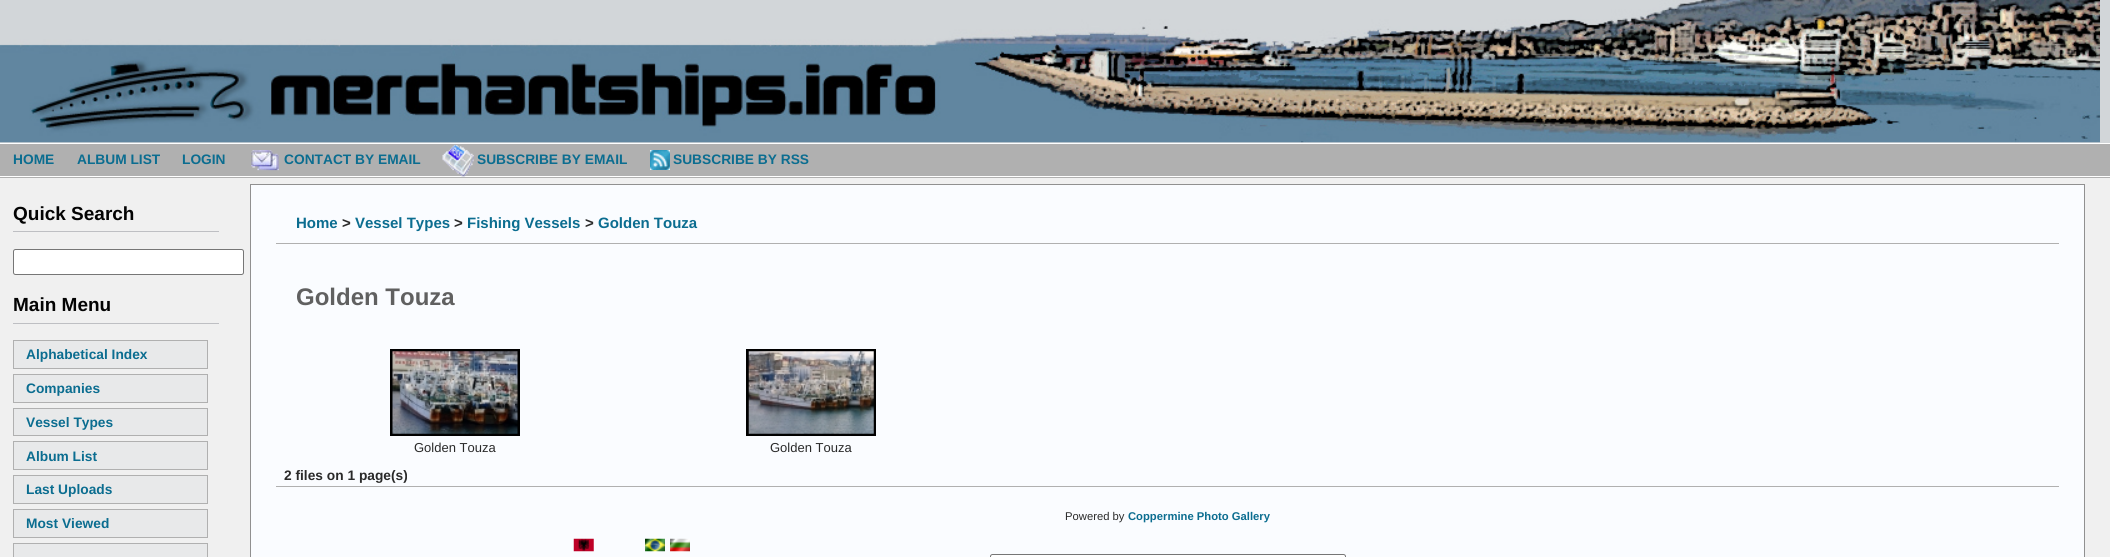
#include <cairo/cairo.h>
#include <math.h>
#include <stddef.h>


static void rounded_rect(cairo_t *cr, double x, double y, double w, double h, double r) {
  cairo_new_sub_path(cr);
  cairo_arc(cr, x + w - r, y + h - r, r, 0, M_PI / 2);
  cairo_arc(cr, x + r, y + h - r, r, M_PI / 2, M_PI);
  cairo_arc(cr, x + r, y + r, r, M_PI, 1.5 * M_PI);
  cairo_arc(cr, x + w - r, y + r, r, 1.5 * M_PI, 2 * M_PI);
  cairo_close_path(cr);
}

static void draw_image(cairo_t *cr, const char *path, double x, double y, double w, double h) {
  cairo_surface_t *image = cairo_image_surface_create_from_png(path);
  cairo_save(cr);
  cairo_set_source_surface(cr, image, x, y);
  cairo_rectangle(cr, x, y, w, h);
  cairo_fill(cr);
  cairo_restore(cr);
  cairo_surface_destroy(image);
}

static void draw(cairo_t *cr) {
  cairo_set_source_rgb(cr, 240 / 255.0, 240 / 255.0, 240 / 255.0);
  cairo_paint(cr);
  cairo_set_source_rgb(cr, 210 / 255.0, 214 / 255.0, 217 / 255.0);
  cairo_rectangle(cr, 0, 0, 2110, 143);
  cairo_fill(cr);
  draw_image(cr, "images/1.png", 0, 0, 2100, 143);
  cairo_set_source_rgb(cr, 176 / 255.0, 176 / 255.0, 176 / 255.0);
  cairo_rectangle(cr, 0, 144, 2110, 34);
  cairo_fill(cr);
  cairo_set_source_rgb(cr, 1, 1, 1);
  cairo_rectangle(cr, 0, 143, 2110, 1);
  cairo_fill(cr);
  cairo_rectangle(cr, 0, 176, 2110, 1);
  cairo_fill(cr);
  draw_image(cr, "images/2.png", 251, 150, 28, 21);
  draw_image(cr, "images/3.png", 442, 144, 32, 33);
  draw_image(cr, "images/4.png", 650, 150, 20, 20);
  cairo_set_source_rgb(cr, 190 / 255.0, 191 / 255.0, 195 / 255.0);
  cairo_rectangle(cr, 13, 231, 206, 1);
  cairo_fill(cr);
  cairo_set_source_rgb(cr, 1, 1, 1);
  rounded_rect(cr, 13.5, 249.5, 230, 25, 2);
  cairo_fill_preserve(cr);
  cairo_set_source_rgb(cr, 118 / 255.0, 118 / 255.0, 118 / 255.0);
  cairo_set_line_width(cr, 1);
  cairo_stroke(cr);
  cairo_set_source_rgb(cr, 190 / 255.0, 191 / 255.0, 195 / 255.0);
  cairo_rectangle(cr, 13, 323, 206, 1);
  cairo_fill(cr);
  cairo_set_source_rgb(cr, 232 / 255.0, 233 / 255.0, 234 / 255.0);
  cairo_rectangle(cr, 13.5, 340.5, 194, 28);
  cairo_fill_preserve(cr);
  cairo_set_source_rgb(cr, 176 / 255.0, 176 / 255.0, 176 / 255.0);
  cairo_stroke(cr);
  cairo_set_source_rgb(cr, 232 / 255.0, 233 / 255.0, 234 / 255.0);
  cairo_rectangle(cr, 13.5, 374.5, 194, 28);
  cairo_fill_preserve(cr);
  cairo_set_source_rgb(cr, 176 / 255.0, 176 / 255.0, 176 / 255.0);
  cairo_stroke(cr);
  cairo_set_source_rgb(cr, 232 / 255.0, 233 / 255.0, 234 / 255.0);
  cairo_rectangle(cr, 13.5, 408.5, 194, 27);
  cairo_fill_preserve(cr);
  cairo_set_source_rgb(cr, 176 / 255.0, 176 / 255.0, 176 / 255.0);
  cairo_stroke(cr);
  cairo_set_source_rgb(cr, 232 / 255.0, 233 / 255.0, 234 / 255.0);
  cairo_rectangle(cr, 13.5, 441.5, 194, 28);
  cairo_fill_preserve(cr);
  cairo_set_source_rgb(cr, 176 / 255.0, 176 / 255.0, 176 / 255.0);
  cairo_stroke(cr);
  cairo_set_source_rgb(cr, 232 / 255.0, 233 / 255.0, 234 / 255.0);
  cairo_rectangle(cr, 13.5, 475.5, 194, 28);
  cairo_fill_preserve(cr);
  cairo_set_source_rgb(cr, 176 / 255.0, 176 / 255.0, 176 / 255.0);
  cairo_stroke(cr);
  cairo_set_source_rgb(cr, 232 / 255.0, 233 / 255.0, 234 / 255.0);
  cairo_rectangle(cr, 13.5, 509.5, 194, 28);
  cairo_fill_preserve(cr);
  cairo_set_source_rgb(cr, 176 / 255.0, 176 / 255.0, 176 / 255.0);
  cairo_stroke(cr);
  cairo_set_source_rgb(cr, 232 / 255.0, 233 / 255.0, 234 / 255.0);
  cairo_rectangle(cr, 13.5, 543.5, 194, 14);
  cairo_fill_preserve(cr);
  cairo_set_source_rgb(cr, 176 / 255.0, 176 / 255.0, 176 / 255.0);
  cairo_stroke(cr);
  cairo_set_source_rgb(cr, 250 / 255.0, 252 / 255.0, 1);
  cairo_rectangle(cr, 250.5, 184.5, 1834, 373);
  cairo_fill_preserve(cr);
  cairo_set_source_rgb(cr, 144 / 255.0, 144 / 255.0, 144 / 255.0);
  cairo_stroke(cr);
  cairo_set_source_rgb(cr, 176 / 255.0, 176 / 255.0, 176 / 255.0);
  cairo_rectangle(cr, 276, 243, 1783, 1);
  cairo_fill(cr);
  cairo_rectangle(cr, 276, 486, 1783, 1);
  cairo_fill(cr);
  cairo_rectangle(cr, 391.5, 350.5, 127, 84);
  cairo_set_source_rgb(cr, 0, 0, 0);
  cairo_set_line_width(cr, 3);
  cairo_stroke(cr);
  draw_image(cr, "images/5.png", 392, 351, 126, 83);
  cairo_rectangle(cr, 747.5, 350.5, 127, 84);
  cairo_stroke(cr);
  draw_image(cr, "images/6.png", 748, 351, 126, 83);
  draw_image(cr, "images/7.png", 573, 538, 21, 14);
  draw_image(cr, "images/8.png", 645, 538, 20, 14);
  draw_image(cr, "images/9.png", 670, 538, 20, 14);
  cairo_set_source_rgb(cr, 1, 1, 1);
  rounded_rect(cr, 990.5, 554.5, 355, 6, 2);
  cairo_fill_preserve(cr);
  cairo_set_source_rgb(cr, 118 / 255.0, 118 / 255.0, 118 / 255.0);
  cairo_set_line_width(cr, 1);
  cairo_stroke(cr);
  cairo_select_font_face(cr, "Liberation Sans", CAIRO_FONT_SLANT_NORMAL, CAIRO_FONT_WEIGHT_BOLD);
  cairo_set_font_size(cr, 13.75);
  cairo_set_source_rgb(cr, 11 / 255.0, 109 / 255.0, 144 / 255.0);
  cairo_move_to(cr, 13, 164);
  cairo_show_text(cr, "HOME");
  cairo_move_to(cr, 77, 164);
  cairo_show_text(cr, "ALBUM LIST");
  cairo_move_to(cr, 182, 164);
  cairo_show_text(cr, "LOGIN");
  cairo_move_to(cr, 284, 164);
  cairo_show_text(cr, "CONTACT BY EMAIL");
  cairo_move_to(cr, 477, 164);
  cairo_show_text(cr, "SUBSCRIBE BY EMAIL");
  cairo_move_to(cr, 673, 164);
  cairo_show_text(cr, "SUBSCRIBE BY RSS");
  cairo_set_font_size(cr, 19);
  cairo_set_source_rgb(cr, 3 / 255.0, 3 / 255.0, 3 / 255.0);
  cairo_move_to(cr, 13, 220);
  cairo_show_text(cr, "Quick Search");
  cairo_move_to(cr, 13, 311);
  cairo_show_text(cr, "Main Menu");
  cairo_set_font_size(cr, 13.75);
  cairo_set_source_rgb(cr, 11 / 255.0, 109 / 255.0, 144 / 255.0);
  cairo_move_to(cr, 26, 359);
  cairo_show_text(cr, "Alphabetical Index");
  cairo_move_to(cr, 26, 393);
  cairo_show_text(cr, "Companies");
  cairo_move_to(cr, 26, 427);
  cairo_show_text(cr, "Vessel Types");
  cairo_move_to(cr, 26, 461);
  cairo_show_text(cr, "Album List");
  cairo_move_to(cr, 26, 494);
  cairo_show_text(cr, "Last Uploads");
  cairo_move_to(cr, 26, 528);
  cairo_show_text(cr, "Most Viewed");
  cairo_set_font_size(cr, 15);
  cairo_move_to(cr, 296, 228);
  cairo_show_text(cr, "Home");
  cairo_set_source_rgb(cr, 42 / 255.0, 42 / 255.0, 42 / 255.0);
  cairo_move_to(cr, 342, 228);
  cairo_show_text(cr, ">");
  cairo_set_source_rgb(cr, 11 / 255.0, 109 / 255.0, 144 / 255.0);
  cairo_move_to(cr, 355, 228);
  cairo_show_text(cr, "Vessel Types");
  cairo_set_source_rgb(cr, 42 / 255.0, 42 / 255.0, 42 / 255.0);
  cairo_move_to(cr, 454, 228);
  cairo_show_text(cr, ">");
  cairo_set_source_rgb(cr, 11 / 255.0, 109 / 255.0, 144 / 255.0);
  cairo_move_to(cr, 467, 228);
  cairo_show_text(cr, "Fishing Vessels");
  cairo_set_source_rgb(cr, 42 / 255.0, 42 / 255.0, 42 / 255.0);
  cairo_move_to(cr, 585, 228);
  cairo_show_text(cr, ">");
  cairo_set_source_rgb(cr, 11 / 255.0, 109 / 255.0, 144 / 255.0);
  cairo_move_to(cr, 598, 228);
  cairo_show_text(cr, "Golden Touza");
  cairo_set_font_size(cr, 24);
  cairo_set_source_rgb(cr, 96 / 255.0, 96 / 255.0, 96 / 255.0);
  cairo_move_to(cr, 296, 305);
  cairo_show_text(cr, "Golden Touza");
  cairo_select_font_face(cr, "Liberation Sans", CAIRO_FONT_SLANT_NORMAL, CAIRO_FONT_WEIGHT_NORMAL);
  cairo_set_font_size(cr, 13);
  cairo_set_source_rgb(cr, 42 / 255.0, 42 / 255.0, 42 / 255.0);
  cairo_move_to(cr, 414, 452);
  cairo_show_text(cr, "Golden Touza");
  cairo_move_to(cr, 770, 452);
  cairo_show_text(cr, "Golden Touza");
  cairo_select_font_face(cr, "Liberation Sans", CAIRO_FONT_SLANT_NORMAL, CAIRO_FONT_WEIGHT_BOLD);
  cairo_set_font_size(cr, 13.75);
  cairo_move_to(cr, 284, 480);
  cairo_show_text(cr, "2 files on 1 page(s)");
  cairo_select_font_face(cr, "Liberation Sans", CAIRO_FONT_SLANT_NORMAL, CAIRO_FONT_WEIGHT_NORMAL);
  cairo_set_font_size(cr, 11.25);
  cairo_move_to(cr, 1065, 520);
  cairo_show_text(cr, "Powered by");
  cairo_select_font_face(cr, "Liberation Sans", CAIRO_FONT_SLANT_NORMAL, CAIRO_FONT_WEIGHT_BOLD);
  cairo_set_source_rgb(cr, 11 / 255.0, 109 / 255.0, 144 / 255.0);
  cairo_move_to(cr, 1128, 520);
  cairo_show_text(cr, "Coppermine Photo Gallery");
}

int main(void) {
  cairo_surface_t *surface = cairo_image_surface_create(CAIRO_FORMAT_RGB24, 2110, 557);
  cairo_t *cr = cairo_create(surface);
  cairo_font_options_t *options = cairo_font_options_create();
  cairo_font_options_set_hint_metrics(options, CAIRO_HINT_METRICS_OFF);
  cairo_font_options_set_hint_style(options, CAIRO_HINT_STYLE_NONE);
  cairo_set_font_options(cr, options);
  cairo_set_miter_limit(cr, 4);
  draw(cr);
  cairo_surface_write_to_png(surface, "out.png");
  cairo_font_options_destroy(options);
  cairo_destroy(cr);
  cairo_surface_destroy(surface);
  return 0;
}
